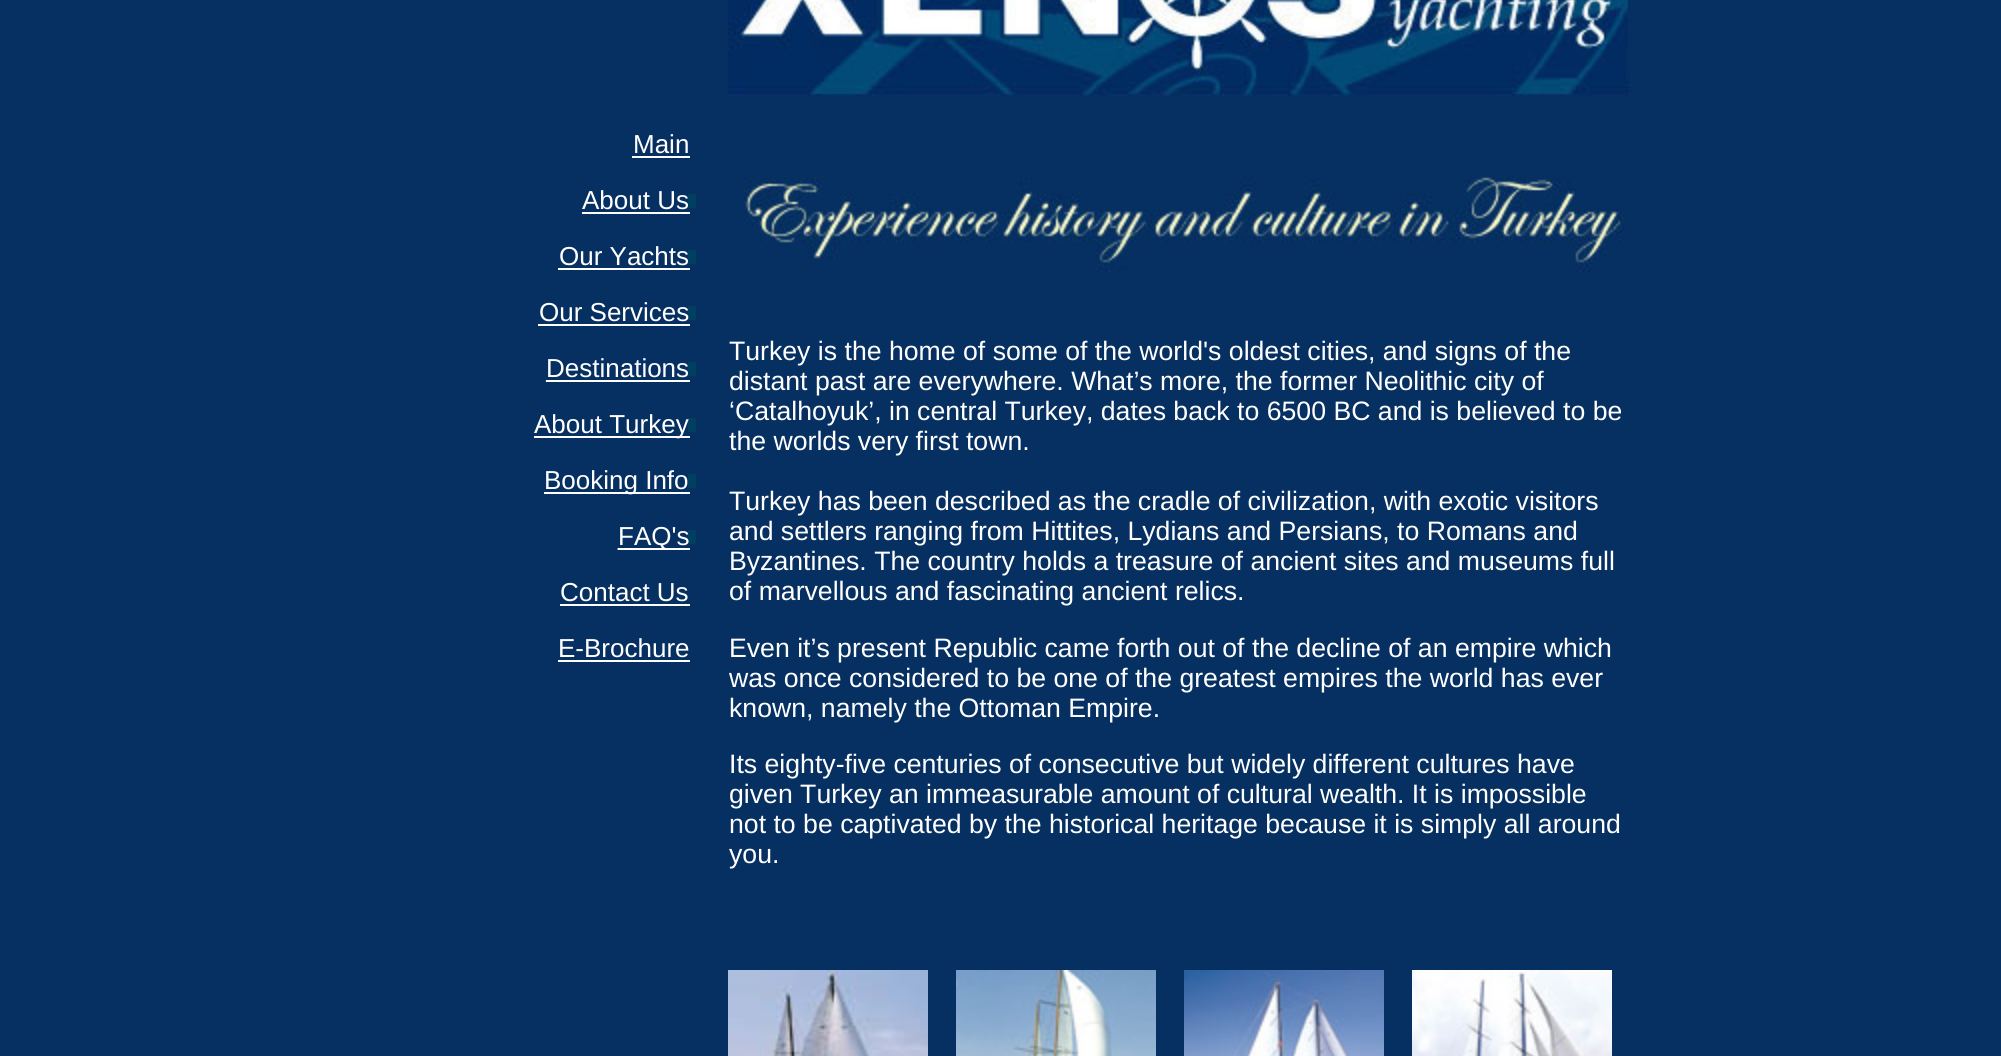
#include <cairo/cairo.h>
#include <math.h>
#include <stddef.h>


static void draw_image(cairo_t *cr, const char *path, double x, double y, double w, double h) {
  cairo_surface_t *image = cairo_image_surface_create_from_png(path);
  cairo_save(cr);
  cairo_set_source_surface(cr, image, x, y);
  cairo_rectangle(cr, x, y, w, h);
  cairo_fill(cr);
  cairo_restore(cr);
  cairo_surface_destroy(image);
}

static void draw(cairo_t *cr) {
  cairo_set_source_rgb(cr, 6 / 255.0, 48 / 255.0, 97 / 255.0);
  cairo_paint(cr);
  draw_image(cr, "images/1.png", 728, 0, 902, 96);
  cairo_set_source_rgb(cr, 1, 1, 1);
  cairo_rectangle(cr, 632, 156, 58, 2);
  cairo_fill(cr);
  draw_image(cr, "images/2.png", 688, 194, 8, 14);
  cairo_rectangle(cr, 582, 212, 108, 2);
  cairo_fill(cr);
  draw_image(cr, "images/2.png", 688, 250, 8, 14);
  cairo_rectangle(cr, 558, 268, 132, 2);
  cairo_fill(cr);
  draw_image(cr, "images/2.png", 688, 306, 8, 14);
  cairo_rectangle(cr, 538, 324, 152, 2);
  cairo_fill(cr);
  draw_image(cr, "images/3.png", 545, 362, 151, 20);
  cairo_rectangle(cr, 689, 380, 1, 2);
  cairo_fill(cr);
  draw_image(cr, "images/2.png", 688, 418, 8, 14);
  cairo_rectangle(cr, 534, 436, 156, 2);
  cairo_fill(cr);
  draw_image(cr, "images/2.png", 688, 474, 8, 14);
  cairo_rectangle(cr, 544, 492, 146, 2);
  cairo_fill(cr);
  draw_image(cr, "images/4.png", 617, 530, 79, 20);
  cairo_rectangle(cr, 658, 548, 32, 2);
  cairo_fill(cr);
  cairo_rectangle(cr, 560, 604, 130, 2);
  cairo_fill(cr);
  cairo_rectangle(cr, 558, 660, 132, 2);
  cairo_fill(cr);
  draw_image(cr, "images/5.png", 743, 177, 882, 95);
  draw_image(cr, "images/6.png", 728, 970, 200, 86);
  draw_image(cr, "images/7.png", 956, 970, 200, 86);
  draw_image(cr, "images/8.png", 1184, 970, 200, 86);
  draw_image(cr, "images/9.png", 1412, 970, 200, 86);
  cairo_select_font_face(cr, "Liberation Sans", CAIRO_FONT_SLANT_NORMAL, CAIRO_FONT_WEIGHT_NORMAL);
  cairo_set_font_size(cr, 26);
  cairo_move_to(cr, 633, 153);
  cairo_show_text(cr, "Main");
  cairo_move_to(cr, 582, 209);
  cairo_show_text(cr, "About Us");
  cairo_move_to(cr, 559, 265);
  cairo_show_text(cr, "Our Yachts");
  cairo_move_to(cr, 539, 321);
  cairo_show_text(cr, "Our Services");
  cairo_move_to(cr, 546, 377);
  cairo_show_text(cr, "Destinations");
  cairo_move_to(cr, 534, 433);
  cairo_show_text(cr, "About Turkey");
  cairo_move_to(cr, 544, 489);
  cairo_show_text(cr, "Booking Info");
  cairo_move_to(cr, 618, 545);
  cairo_show_text(cr, "FAQ's");
  cairo_move_to(cr, 560, 601);
  cairo_show_text(cr, "Contact Us");
  cairo_move_to(cr, 558, 657);
  cairo_show_text(cr, "E-Brochure");
  cairo_set_font_size(cr, 26.65);
  cairo_move_to(cr, 729, 360);
  cairo_show_text(cr, "Turkey is the home of some of the world's oldest cities, and signs of the");
  cairo_move_to(cr, 729, 390);
  cairo_show_text(cr, "distant past are everywhere. What’s more, the former Neolithic city of");
  cairo_move_to(cr, 729, 420);
  cairo_show_text(cr, "‘Catalhoyuk’, in central Turkey, dates back to 6500 BC and is believed to be");
  cairo_move_to(cr, 729, 450);
  cairo_show_text(cr, "the worlds very first town.");
  cairo_move_to(cr, 729, 510);
  cairo_show_text(cr, "Turkey has been described as the cradle of civilization, with exotic visitors");
  cairo_move_to(cr, 729, 540);
  cairo_show_text(cr, "and settlers ranging from Hittites, Lydians and Persians, to Romans and");
  cairo_move_to(cr, 729, 570);
  cairo_show_text(cr, "Byzantines. The country holds a treasure of ancient sites and museums full");
  cairo_move_to(cr, 729, 600);
  cairo_show_text(cr, "of marvellous and fascinating ancient relics.");
  cairo_move_to(cr, 729, 657);
  cairo_show_text(cr, "Even it’s present Republic came forth out of the decline of an empire which");
  cairo_move_to(cr, 729, 687);
  cairo_show_text(cr, "was once considered to be one of the greatest empires the world has ever");
  cairo_move_to(cr, 729, 717);
  cairo_show_text(cr, "known, namely the Ottoman Empire.");
  cairo_move_to(cr, 729, 773);
  cairo_show_text(cr, "Its eighty-five centuries of consecutive but widely different cultures have");
  cairo_move_to(cr, 729, 803);
  cairo_show_text(cr, "given Turkey an immeasurable amount of cultural wealth. It is impossible");
  cairo_move_to(cr, 729, 833);
  cairo_show_text(cr, "not to be captivated by the historical heritage because it is simply all around");
  cairo_move_to(cr, 729, 863);
  cairo_show_text(cr, "you.");
}

int main(void) {
  cairo_surface_t *surface = cairo_image_surface_create(CAIRO_FORMAT_RGB24, 2001, 1056);
  cairo_t *cr = cairo_create(surface);
  cairo_font_options_t *options = cairo_font_options_create();
  cairo_font_options_set_hint_metrics(options, CAIRO_HINT_METRICS_OFF);
  cairo_font_options_set_hint_style(options, CAIRO_HINT_STYLE_NONE);
  cairo_set_font_options(cr, options);
  cairo_set_miter_limit(cr, 4);
  draw(cr);
  cairo_surface_write_to_png(surface, "out.png");
  cairo_font_options_destroy(options);
  cairo_destroy(cr);
  cairo_surface_destroy(surface);
  return 0;
}
